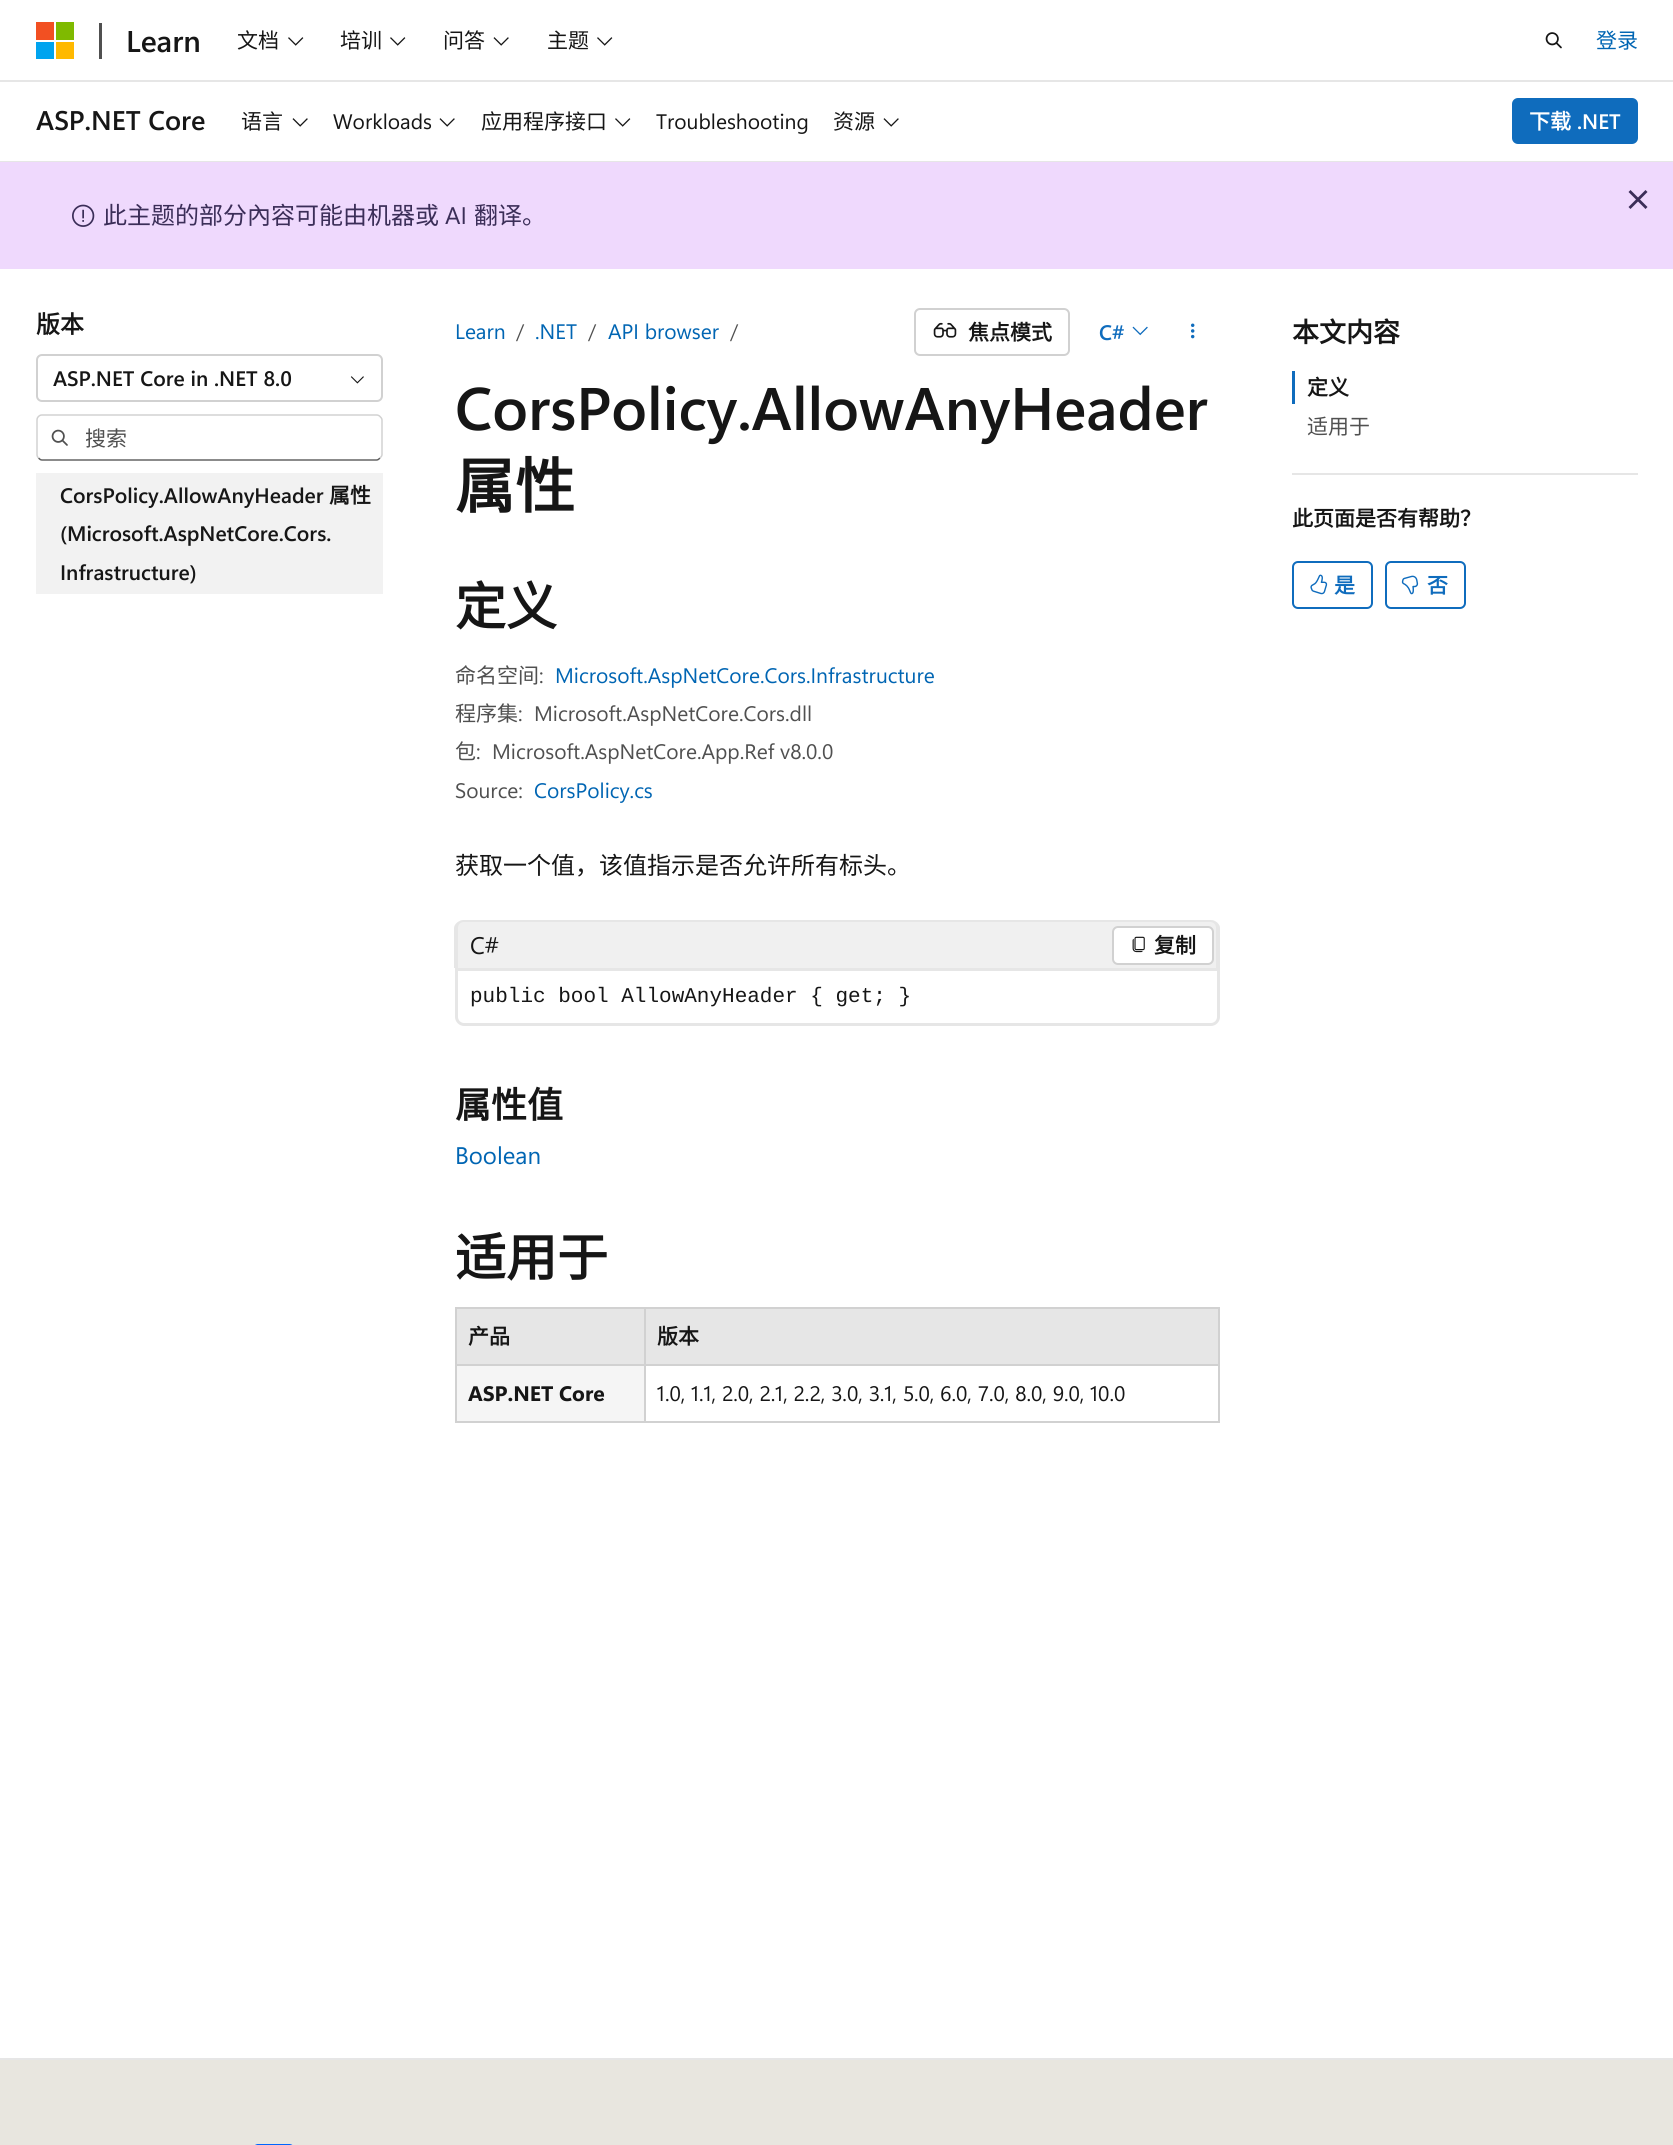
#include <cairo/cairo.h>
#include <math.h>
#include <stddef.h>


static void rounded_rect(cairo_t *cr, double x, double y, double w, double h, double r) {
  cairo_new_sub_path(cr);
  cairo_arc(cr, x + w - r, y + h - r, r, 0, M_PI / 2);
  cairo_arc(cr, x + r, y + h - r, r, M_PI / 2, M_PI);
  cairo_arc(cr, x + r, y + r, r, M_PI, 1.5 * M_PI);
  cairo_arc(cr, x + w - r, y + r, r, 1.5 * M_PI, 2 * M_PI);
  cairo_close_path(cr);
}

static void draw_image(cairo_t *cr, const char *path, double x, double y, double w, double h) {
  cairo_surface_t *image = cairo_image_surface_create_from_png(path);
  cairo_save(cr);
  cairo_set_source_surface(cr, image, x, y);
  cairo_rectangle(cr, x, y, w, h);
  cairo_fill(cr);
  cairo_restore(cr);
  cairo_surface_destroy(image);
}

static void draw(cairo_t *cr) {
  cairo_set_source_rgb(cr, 1, 1, 1);
  cairo_paint(cr);
  cairo_set_source_rgb(cr, 230 / 255.0, 230 / 255.0, 230 / 255.0);
  cairo_rectangle(cr, 0, 80, 1673, 2);
  cairo_fill(cr);
  cairo_set_source_rgb(cr, 242 / 255.0, 80 / 255.0, 34 / 255.0);
  cairo_rectangle(cr, 36, 22, 18, 18);
  cairo_fill(cr);
  cairo_set_source_rgb(cr, 127 / 255.0, 186 / 255.0, 0);
  cairo_rectangle(cr, 56, 22, 18, 18);
  cairo_fill(cr);
  cairo_set_source_rgb(cr, 0, 164 / 255.0, 239 / 255.0);
  cairo_rectangle(cr, 36, 42, 18, 17);
  cairo_fill(cr);
  cairo_set_source_rgb(cr, 1, 185 / 255.0, 0);
  cairo_rectangle(cr, 56, 42, 18, 17);
  cairo_fill(cr);
  cairo_set_source_rgb(cr, 80 / 255.0, 80 / 255.0, 80 / 255.0);
  cairo_rectangle(cr, 99, 23, 3, 36);
  cairo_fill(cr);
  draw_image(cr, "images/1.png", 288, 37, 16, 9);
  draw_image(cr, "images/1.png", 390, 37, 16, 9);
  draw_image(cr, "images/2.png", 493, 37, 16, 9);
  draw_image(cr, "images/1.png", 597, 37, 16, 9);
  draw_image(cr, "images/3.png", 1545, 32, 17, 17);
  cairo_set_source_rgb(cr, 230 / 255.0, 230 / 255.0, 230 / 255.0);
  cairo_rectangle(cr, 0, 161, 1673, 1);
  cairo_fill(cr);
  draw_image(cr, "images/2.png", 292, 118, 16, 9);
  draw_image(cr, "images/2.png", 439, 118, 16, 9);
  draw_image(cr, "images/1.png", 615, 118, 16, 9);
  draw_image(cr, "images/2.png", 883, 118, 16, 9);
  cairo_set_source_rgb(cr, 15 / 255.0, 108 / 255.0, 189 / 255.0);
  rounded_rect(cr, 1513, 99, 124, 44, 5);
  cairo_fill_preserve(cr);
  cairo_stroke(cr);
  cairo_set_source_rgb(cr, 239 / 255.0, 217 / 255.0, 253 / 255.0);
  cairo_rectangle(cr, 0, 162, 1673, 107);
  cairo_fill(cr);
  cairo_set_source_rgb(cr, 59 / 255.0, 46 / 255.0, 88 / 255.0);
  cairo_new_path(cr);
  cairo_move_to(cr, 1630.5, 190);
  cairo_line_to(cr, 1647.5, 207);
  cairo_line_to(cr, 1645.5, 209);
  cairo_line_to(cr, 1628.5, 192);
  cairo_close_path(cr);
  cairo_fill(cr);
  cairo_new_path(cr);
  cairo_move_to(cr, 1645.5, 190);
  cairo_line_to(cr, 1647.5, 192);
  cairo_line_to(cr, 1630.5, 209);
  cairo_line_to(cr, 1628.5, 207);
  cairo_close_path(cr);
  cairo_fill(cr);
  draw_image(cr, "images/4.png", 72, 204, 23, 23);
  rounded_rect(cr, 37, 355, 345, 46, 5);
  cairo_set_source_rgb(cr, 209 / 255.0, 209 / 255.0, 209 / 255.0);
  cairo_stroke(cr);
  draw_image(cr, "images/5.png", 350, 376, 14, 8);
  cairo_new_path(cr);
  cairo_move_to(cr, 380, 458);
  cairo_curve_to(cr, 379, 459, 378, 460, 376.5, 460);
  cairo_line_to(cr, 42, 460);
  cairo_curve_to(cr, 40.5, 460, 39.5, 459, 38.5, 458);
  cairo_set_source_rgb(cr, 97 / 255.0, 97 / 255.0, 97 / 255.0);
  cairo_set_line_width(cr, 1.5);
  cairo_stroke(cr);
  cairo_new_path(cr);
  cairo_move_to(cr, 38.5, 458);
  cairo_curve_to(cr, 37.5, 457, 37, 456, 37, 454.5);
  cairo_line_to(cr, 37, 420);
  cairo_curve_to(cr, 37, 418.5, 37.5, 417.5, 38.5, 416.5);
  cairo_curve_to(cr, 39.5, 415.5, 40.5, 415, 42, 415);
  cairo_line_to(cr, 376.5, 415);
  cairo_curve_to(cr, 378, 415, 379, 415.5, 380, 416.5);
  cairo_curve_to(cr, 381, 417.5, 382, 418.5, 382, 420);
  cairo_line_to(cr, 382, 454.5);
  cairo_curve_to(cr, 382, 456, 381, 457, 380, 458);
  cairo_set_source_rgb(cr, 209 / 255.0, 209 / 255.0, 209 / 255.0);
  cairo_stroke(cr);
  draw_image(cr, "images/6.png", 51, 429, 17, 17);
  cairo_set_source_rgb(cr, 242 / 255.0, 242 / 255.0, 242 / 255.0);
  cairo_rectangle(cr, 36, 473, 347, 121);
  cairo_fill(cr);
  rounded_rect(cr, 915, 309, 154, 46, 5);
  cairo_set_source_rgb(cr, 209 / 255.0, 209 / 255.0, 209 / 255.0);
  cairo_set_line_width(cr, 2);
  cairo_stroke(cr);
  draw_image(cr, "images/7.png", 933, 322, 24, 16);
  draw_image(cr, "images/8.png", 1132, 326, 16, 10);
  draw_image(cr, "images/9.png", 1190, 323, 5, 16);
  cairo_set_source_rgb(cr, 240 / 255.0, 240 / 255.0, 240 / 255.0);
  cairo_new_path(cr);
  cairo_move_to(cr, 464, 920);
  cairo_line_to(cr, 1211, 920);
  cairo_curve_to(cr, 1216, 920, 1220, 924, 1220, 929);
  cairo_line_to(cr, 1220, 968);
  cairo_line_to(cr, 455, 968);
  cairo_line_to(cr, 455, 929);
  cairo_curve_to(cr, 455, 924, 459, 920, 464, 920);
  cairo_close_path(cr);
  cairo_fill(cr);
  cairo_set_source_rgb(cr, 230 / 255.0, 230 / 255.0, 230 / 255.0);
  cairo_set_fill_rule(cr, CAIRO_FILL_RULE_EVEN_ODD);
  cairo_new_path(cr);
  cairo_move_to(cr, 464, 920);
  cairo_line_to(cr, 1210, 920);
  cairo_curve_to(cr, 1215, 920, 1220, 924, 1220, 928);
  cairo_line_to(cr, 1220, 968);
  cairo_line_to(cr, 454, 968);
  cairo_line_to(cr, 454, 928);
  cairo_curve_to(cr, 454, 924, 459, 920, 464, 920);
  cairo_close_path(cr);
  cairo_move_to(cr, 464, 922);
  cairo_line_to(cr, 1210, 922);
  cairo_curve_to(cr, 1214, 922, 1216, 925, 1216, 928);
  cairo_line_to(cr, 1216, 968);
  cairo_line_to(cr, 458, 968);
  cairo_line_to(cr, 458, 928);
  cairo_curve_to(cr, 458, 925, 460, 922, 464, 922);
  cairo_close_path(cr);
  cairo_fill(cr);
  cairo_set_source_rgb(cr, 1, 1, 1);
  rounded_rect(cr, 1113, 927, 100, 37, 5);
  cairo_fill_preserve(cr);
  cairo_set_source_rgb(cr, 209 / 255.0, 209 / 255.0, 209 / 255.0);
  cairo_stroke(cr);
  draw_image(cr, "images/10.png", 1132, 936, 13, 17);
  cairo_new_path(cr);
  cairo_move_to(cr, 456.5, 969.5);
  cairo_line_to(cr, 1218.5, 969.5);
  cairo_line_to(cr, 1218.5, 1017);
  cairo_curve_to(cr, 1218.5, 1021, 1215, 1024.5, 1211, 1024.5);
  cairo_line_to(cr, 464, 1024.5);
  cairo_curve_to(cr, 460, 1024.5, 456.5, 1021, 456.5, 1017);
  cairo_close_path(cr);
  cairo_set_source_rgb(cr, 230 / 255.0, 230 / 255.0, 230 / 255.0);
  cairo_set_line_width(cr, 3);
  cairo_stroke(cr);
  cairo_set_source_rgb(cr, 209 / 255.0, 209 / 255.0, 209 / 255.0);
  cairo_rectangle(cr, 455, 1307, 765, 2);
  cairo_fill(cr);
  cairo_rectangle(cr, 1218, 1307, 2, 115);
  cairo_fill(cr);
  cairo_rectangle(cr, 455, 1421, 765, 2);
  cairo_fill(cr);
  cairo_rectangle(cr, 455, 1307, 2, 115);
  cairo_fill(cr);
  cairo_set_source_rgb(cr, 230 / 255.0, 230 / 255.0, 230 / 255.0);
  cairo_rectangle(cr, 457, 1309, 761, 55);
  cairo_fill(cr);
  cairo_set_source_rgb(cr, 209 / 255.0, 209 / 255.0, 209 / 255.0);
  cairo_rectangle(cr, 644, 1364, 576, 2);
  cairo_fill(cr);
  cairo_rectangle(cr, 644, 1364, 2, 58);
  cairo_fill(cr);
  cairo_rectangle(cr, 455, 1364, 190, 2);
  cairo_fill(cr);
  cairo_rectangle(cr, 644, 1307, 2, 58);
  cairo_fill(cr);
  cairo_set_source_rgb(cr, 245 / 255.0, 245 / 255.0, 245 / 255.0);
  cairo_rectangle(cr, 457, 1366, 187, 55);
  cairo_fill(cr);
  cairo_set_source_rgb(cr, 230 / 255.0, 230 / 255.0, 230 / 255.0);
  cairo_rectangle(cr, 1292, 473, 346, 2);
  cairo_fill(cr);
  cairo_set_source_rgb(cr, 15 / 255.0, 108 / 255.0, 189 / 255.0);
  cairo_rectangle(cr, 1292, 371, 3, 33);
  cairo_fill(cr);
  rounded_rect(cr, 1293, 562, 79, 46, 5);
  cairo_set_line_width(cr, 2);
  cairo_stroke(cr);
  draw_image(cr, "images/11.png", 1310, 574, 18, 21);
  rounded_rect(cr, 1386, 562, 79, 46, 5);
  cairo_stroke(cr);
  draw_image(cr, "images/12.png", 1401, 575, 18, 20);
  cairo_set_source_rgb(cr, 232 / 255.0, 230 / 255.0, 223 / 255.0);
  cairo_rectangle(cr, 0, 2060, 1673, 85);
  cairo_fill(cr);
  cairo_set_source_rgb(cr, 230 / 255.0, 230 / 255.0, 230 / 255.0);
  cairo_rectangle(cr, 0, 2058, 1673, 2);
  cairo_fill(cr);
  draw_image(cr, "images/13.png", 255, 2144, 38, 1);
  cairo_select_font_face(cr, "Segoe UI SemiBold", CAIRO_FONT_SLANT_NORMAL, CAIRO_FONT_WEIGHT_NORMAL);
  cairo_set_font_size(cr, 30);
  cairo_set_source_rgb(cr, 22 / 255.0, 22 / 255.0, 22 / 255.0);
  cairo_move_to(cr, 126, 52);
  cairo_show_text(cr, "Learn");
  cairo_select_font_face(cr, "Noto Sans CJK SC", CAIRO_FONT_SLANT_NORMAL, CAIRO_FONT_WEIGHT_NORMAL);
  cairo_set_font_size(cr, 21);
  cairo_move_to(cr, 237, 48);
  cairo_show_text(cr, "文档");
  cairo_move_to(cr, 340, 48);
  cairo_show_text(cr, "培训");
  cairo_move_to(cr, 443, 48);
  cairo_show_text(cr, "问答");
  cairo_move_to(cr, 547, 48);
  cairo_show_text(cr, "主题");
  cairo_set_source_rgb(cr, 0, 101 / 255.0, 179 / 255.0);
  cairo_move_to(cr, 1596, 48);
  cairo_show_text(cr, "登录");
  cairo_select_font_face(cr, "Segoe UI SemiBold", CAIRO_FONT_SLANT_NORMAL, CAIRO_FONT_WEIGHT_NORMAL);
  cairo_set_font_size(cr, 27);
  cairo_set_source_rgb(cr, 22 / 255.0, 22 / 255.0, 22 / 255.0);
  cairo_move_to(cr, 36, 130);
  cairo_show_text(cr, "ASP.NET Core");
  cairo_select_font_face(cr, "Noto Sans CJK SC", CAIRO_FONT_SLANT_NORMAL, CAIRO_FONT_WEIGHT_NORMAL);
  cairo_set_font_size(cr, 21);
  cairo_move_to(cr, 241, 129);
  cairo_show_text(cr, "语言");
  cairo_select_font_face(cr, "Segoe UI", CAIRO_FONT_SLANT_NORMAL, CAIRO_FONT_WEIGHT_NORMAL);
  cairo_move_to(cr, 333, 129);
  cairo_show_text(cr, "Workloads");
  cairo_select_font_face(cr, "Noto Sans CJK SC", CAIRO_FONT_SLANT_NORMAL, CAIRO_FONT_WEIGHT_NORMAL);
  cairo_move_to(cr, 481, 129);
  cairo_show_text(cr, "应用程序接口");
  cairo_select_font_face(cr, "Segoe UI", CAIRO_FONT_SLANT_NORMAL, CAIRO_FONT_WEIGHT_NORMAL);
  cairo_move_to(cr, 656, 129);
  cairo_show_text(cr, "Troubleshooting");
  cairo_select_font_face(cr, "Noto Sans CJK SC", CAIRO_FONT_SLANT_NORMAL, CAIRO_FONT_WEIGHT_NORMAL);
  cairo_move_to(cr, 833, 129);
  cairo_show_text(cr, "资源");
  cairo_select_font_face(cr, "Noto Sans CJK SC", CAIRO_FONT_SLANT_NORMAL, CAIRO_FONT_WEIGHT_BOLD);
  cairo_set_source_rgb(cr, 1, 1, 1);
  cairo_move_to(cr, 1529, 129);
  cairo_show_text(cr, "下载");
  cairo_select_font_face(cr, "Segoe UI SemiBold", CAIRO_FONT_SLANT_NORMAL, CAIRO_FONT_WEIGHT_NORMAL);
  cairo_move_to(cr, 1577, 129);
  cairo_show_text(cr, ".NET");
  cairo_select_font_face(cr, "Noto Sans CJK SC", CAIRO_FONT_SLANT_NORMAL, CAIRO_FONT_WEIGHT_NORMAL);
  cairo_set_font_size(cr, 24);
  cairo_set_source_rgb(cr, 59 / 255.0, 46 / 255.0, 88 / 255.0);
  cairo_move_to(cr, 103, 224);
  cairo_show_text(cr, "此主题的部分內容可能由机器或");
  cairo_select_font_face(cr, "Segoe UI", CAIRO_FONT_SLANT_NORMAL, CAIRO_FONT_WEIGHT_NORMAL);
  cairo_move_to(cr, 445, 224);
  cairo_show_text(cr, "AI");
  cairo_select_font_face(cr, "Noto Sans CJK SC", CAIRO_FONT_SLANT_NORMAL, CAIRO_FONT_WEIGHT_NORMAL);
  cairo_move_to(cr, 474, 224);
  cairo_show_text(cr, "翻译。");
  cairo_select_font_face(cr, "Noto Sans CJK SC", CAIRO_FONT_SLANT_NORMAL, CAIRO_FONT_WEIGHT_BOLD);
  cairo_set_source_rgb(cr, 22 / 255.0, 22 / 255.0, 22 / 255.0);
  cairo_move_to(cr, 36, 333);
  cairo_show_text(cr, "版本");
  cairo_select_font_face(cr, "Segoe UI SemiBold", CAIRO_FONT_SLANT_NORMAL, CAIRO_FONT_WEIGHT_NORMAL);
  cairo_set_font_size(cr, 21);
  cairo_move_to(cr, 53, 386);
  cairo_show_text(cr, "ASP.NET Core in .NET 8.0");
  cairo_save(cr);
  cairo_set_fill_rule(cr, CAIRO_FILL_RULE_WINDING);
  cairo_rectangle(cr, 86, 422, 256, 30);
  cairo_clip(cr);
  cairo_select_font_face(cr, "Noto Sans CJK SC", CAIRO_FONT_SLANT_NORMAL, CAIRO_FONT_WEIGHT_NORMAL);
  cairo_set_source_rgb(cr, 80 / 255.0, 80 / 255.0, 80 / 255.0);
  cairo_move_to(cr, 85, 446);
  cairo_show_text(cr, "搜索");
  cairo_restore(cr);
  cairo_move_to(cr, 60, 503);
  cairo_show_text(cr, "CorsPolicy.AllowAnyHeader");
  cairo_select_font_face(cr, "Noto Sans CJK SC", CAIRO_FONT_SLANT_NORMAL, CAIRO_FONT_WEIGHT_BOLD);
  cairo_move_to(cr, 329, 503);
  cairo_show_text(cr, "属性");
  cairo_select_font_face(cr, "Segoe UI SemiBold", CAIRO_FONT_SLANT_NORMAL, CAIRO_FONT_WEIGHT_NORMAL);
  cairo_move_to(cr, 60, 541);
  cairo_show_text(cr, "(Microsoft.AspNetCore.Cors.");
  cairo_move_to(cr, 60, 580);
  cairo_show_text(cr, "Infrastructure)");
  cairo_select_font_face(cr, "Segoe UI", CAIRO_FONT_SLANT_NORMAL, CAIRO_FONT_WEIGHT_NORMAL);
  cairo_set_source_rgb(cr, 0, 101 / 255.0, 179 / 255.0);
  cairo_move_to(cr, 455, 339);
  cairo_show_text(cr, "Learn");
  cairo_set_source_rgb(cr, 80 / 255.0, 80 / 255.0, 80 / 255.0);
  cairo_move_to(cr, 516, 339);
  cairo_show_text(cr, "/");
  cairo_set_source_rgb(cr, 0, 101 / 255.0, 179 / 255.0);
  cairo_move_to(cr, 535, 339);
  cairo_show_text(cr, ".NET");
  cairo_set_source_rgb(cr, 80 / 255.0, 80 / 255.0, 80 / 255.0);
  cairo_move_to(cr, 588, 339);
  cairo_show_text(cr, "/");
  cairo_set_source_rgb(cr, 0, 101 / 255.0, 179 / 255.0);
  cairo_move_to(cr, 608, 339);
  cairo_show_text(cr, "API browser");
  cairo_set_source_rgb(cr, 80 / 255.0, 80 / 255.0, 80 / 255.0);
  cairo_move_to(cr, 730, 339);
  cairo_show_text(cr, "/");
  cairo_select_font_face(cr, "Noto Sans CJK SC", CAIRO_FONT_SLANT_NORMAL, CAIRO_FONT_WEIGHT_BOLD);
  cairo_set_source_rgb(cr, 22 / 255.0, 22 / 255.0, 22 / 255.0);
  cairo_move_to(cr, 968, 340);
  cairo_show_text(cr, "焦点模式");
  cairo_select_font_face(cr, "Segoe UI SemiBold", CAIRO_FONT_SLANT_NORMAL, CAIRO_FONT_WEIGHT_NORMAL);
  cairo_set_source_rgb(cr, 15 / 255.0, 108 / 255.0, 189 / 255.0);
  cairo_move_to(cr, 1099, 340);
  cairo_show_text(cr, "C#");
  cairo_set_font_size(cr, 60);
  cairo_set_source_rgb(cr, 22 / 255.0, 22 / 255.0, 22 / 255.0);
  cairo_move_to(cr, 455, 430);
  cairo_show_text(cr, "CorsPolicy.AllowAnyHeader");
  cairo_select_font_face(cr, "Noto Sans CJK SC", CAIRO_FONT_SLANT_NORMAL, CAIRO_FONT_WEIGHT_BOLD);
  cairo_move_to(cr, 455, 508);
  cairo_show_text(cr, "属性");
  cairo_set_font_size(cr, 51);
  cairo_move_to(cr, 455, 625);
  cairo_show_text(cr, "定义");
  cairo_select_font_face(cr, "Noto Sans CJK SC", CAIRO_FONT_SLANT_NORMAL, CAIRO_FONT_WEIGHT_NORMAL);
  cairo_set_font_size(cr, 21);
  cairo_set_source_rgb(cr, 80 / 255.0, 80 / 255.0, 80 / 255.0);
  cairo_move_to(cr, 455, 683);
  cairo_show_text(cr, "命名空间");
  cairo_select_font_face(cr, "Segoe UI", CAIRO_FONT_SLANT_NORMAL, CAIRO_FONT_WEIGHT_NORMAL);
  cairo_move_to(cr, 539, 683);
  cairo_show_text(cr, ":");
  cairo_set_source_rgb(cr, 0, 101 / 255.0, 179 / 255.0);
  cairo_move_to(cr, 555, 683);
  cairo_show_text(cr, "Microsoft.AspNetCore.Cors.Infrastructure");
  cairo_select_font_face(cr, "Noto Sans CJK SC", CAIRO_FONT_SLANT_NORMAL, CAIRO_FONT_WEIGHT_NORMAL);
  cairo_set_source_rgb(cr, 80 / 255.0, 80 / 255.0, 80 / 255.0);
  cairo_move_to(cr, 455, 721);
  cairo_show_text(cr, "程序集");
  cairo_select_font_face(cr, "Segoe UI", CAIRO_FONT_SLANT_NORMAL, CAIRO_FONT_WEIGHT_NORMAL);
  cairo_move_to(cr, 518, 721);
  cairo_show_text(cr, ":");
  cairo_move_to(cr, 534, 721);
  cairo_show_text(cr, "Microsoft.AspNetCore.Cors.dll");
  cairo_select_font_face(cr, "Noto Sans CJK SC", CAIRO_FONT_SLANT_NORMAL, CAIRO_FONT_WEIGHT_NORMAL);
  cairo_move_to(cr, 455, 759);
  cairo_show_text(cr, "包");
  cairo_select_font_face(cr, "Segoe UI", CAIRO_FONT_SLANT_NORMAL, CAIRO_FONT_WEIGHT_NORMAL);
  cairo_move_to(cr, 476, 759);
  cairo_show_text(cr, ":");
  cairo_move_to(cr, 492, 759);
  cairo_show_text(cr, "Microsoft.AspNetCore.App.Ref v8.0.0");
  cairo_move_to(cr, 455, 798);
  cairo_show_text(cr, "Source:");
  cairo_set_source_rgb(cr, 0, 101 / 255.0, 179 / 255.0);
  cairo_move_to(cr, 534, 798);
  cairo_show_text(cr, "CorsPolicy.cs");
  cairo_select_font_face(cr, "Noto Sans CJK SC", CAIRO_FONT_SLANT_NORMAL, CAIRO_FONT_WEIGHT_NORMAL);
  cairo_set_font_size(cr, 24);
  cairo_set_source_rgb(cr, 22 / 255.0, 22 / 255.0, 22 / 255.0);
  cairo_move_to(cr, 455, 874);
  cairo_show_text(cr, "获取一个值，该值指示是否允许所有标头。");
  cairo_select_font_face(cr, "Segoe UI", CAIRO_FONT_SLANT_NORMAL, CAIRO_FONT_WEIGHT_NORMAL);
  cairo_move_to(cr, 470, 954);
  cairo_show_text(cr, "C#");
  cairo_select_font_face(cr, "Noto Sans CJK SC", CAIRO_FONT_SLANT_NORMAL, CAIRO_FONT_WEIGHT_BOLD);
  cairo_set_font_size(cr, 21);
  cairo_move_to(cr, 1154, 953);
  cairo_show_text(cr, "复制");
  cairo_select_font_face(cr, "Liberation Mono", CAIRO_FONT_SLANT_NORMAL, CAIRO_FONT_WEIGHT_NORMAL);
  cairo_move_to(cr, 470, 1002);
  cairo_show_text(cr, "public bool AllowAnyHeader { get; }");
  cairo_select_font_face(cr, "Noto Sans CJK SC", CAIRO_FONT_SLANT_NORMAL, CAIRO_FONT_WEIGHT_BOLD);
  cairo_set_font_size(cr, 36);
  cairo_move_to(cr, 455, 1118);
  cairo_show_text(cr, "属性值");
  cairo_select_font_face(cr, "Segoe UI", CAIRO_FONT_SLANT_NORMAL, CAIRO_FONT_WEIGHT_NORMAL);
  cairo_set_font_size(cr, 24);
  cairo_set_source_rgb(cr, 0, 101 / 255.0, 179 / 255.0);
  cairo_move_to(cr, 455, 1164);
  cairo_show_text(cr, "Boolean");
  cairo_select_font_face(cr, "Noto Sans CJK SC", CAIRO_FONT_SLANT_NORMAL, CAIRO_FONT_WEIGHT_BOLD);
  cairo_set_font_size(cr, 51);
  cairo_set_source_rgb(cr, 22 / 255.0, 22 / 255.0, 22 / 255.0);
  cairo_move_to(cr, 455, 1276);
  cairo_show_text(cr, "适用于");
  cairo_set_font_size(cr, 21);
  cairo_move_to(cr, 468, 1344);
  cairo_show_text(cr, "产品");
  cairo_move_to(cr, 657, 1344);
  cairo_show_text(cr, "版本");
  cairo_select_font_face(cr, "Segoe UI", CAIRO_FONT_SLANT_NORMAL, CAIRO_FONT_WEIGHT_BOLD);
  cairo_move_to(cr, 468, 1401);
  cairo_show_text(cr, "ASP.NET Core");
  cairo_select_font_face(cr, "Segoe UI", CAIRO_FONT_SLANT_NORMAL, CAIRO_FONT_WEIGHT_NORMAL);
  cairo_move_to(cr, 657, 1401);
  cairo_show_text(cr, "1.0, 1.1, 2.0, 2.1, 2.2, 3.0, 3.1, 5.0, 6.0, 7.0, 8.0, 9.0, 10.0");
  cairo_select_font_face(cr, "Noto Sans CJK SC", CAIRO_FONT_SLANT_NORMAL, CAIRO_FONT_WEIGHT_BOLD);
  cairo_set_font_size(cr, 27);
  cairo_move_to(cr, 1292, 342);
  cairo_show_text(cr, "本文内容");
  cairo_set_font_size(cr, 21);
  cairo_move_to(cr, 1307, 395);
  cairo_show_text(cr, "定义");
  cairo_select_font_face(cr, "Noto Sans CJK SC", CAIRO_FONT_SLANT_NORMAL, CAIRO_FONT_WEIGHT_NORMAL);
  cairo_set_source_rgb(cr, 80 / 255.0, 80 / 255.0, 80 / 255.0);
  cairo_move_to(cr, 1307, 434);
  cairo_show_text(cr, "适用于");
  cairo_select_font_face(cr, "Noto Sans CJK SC", CAIRO_FONT_SLANT_NORMAL, CAIRO_FONT_WEIGHT_BOLD);
  cairo_set_source_rgb(cr, 22 / 255.0, 22 / 255.0, 22 / 255.0);
  cairo_move_to(cr, 1292, 526);
  cairo_show_text(cr, "此页面是否有帮助？");
  cairo_set_source_rgb(cr, 15 / 255.0, 108 / 255.0, 189 / 255.0);
  cairo_move_to(cr, 1334, 593);
  cairo_show_text(cr, "是");
  cairo_move_to(cr, 1427, 593);
  cairo_show_text(cr, "否");
}

int main(void) {
  cairo_surface_t *surface = cairo_image_surface_create(CAIRO_FORMAT_RGB24, 1673, 2145);
  cairo_t *cr = cairo_create(surface);
  cairo_font_options_t *options = cairo_font_options_create();
  cairo_font_options_set_hint_metrics(options, CAIRO_HINT_METRICS_OFF);
  cairo_font_options_set_hint_style(options, CAIRO_HINT_STYLE_NONE);
  cairo_set_font_options(cr, options);
  cairo_set_miter_limit(cr, 4);
  draw(cr);
  cairo_surface_write_to_png(surface, "out.png");
  cairo_font_options_destroy(options);
  cairo_destroy(cr);
  cairo_surface_destroy(surface);
  return 0;
}
